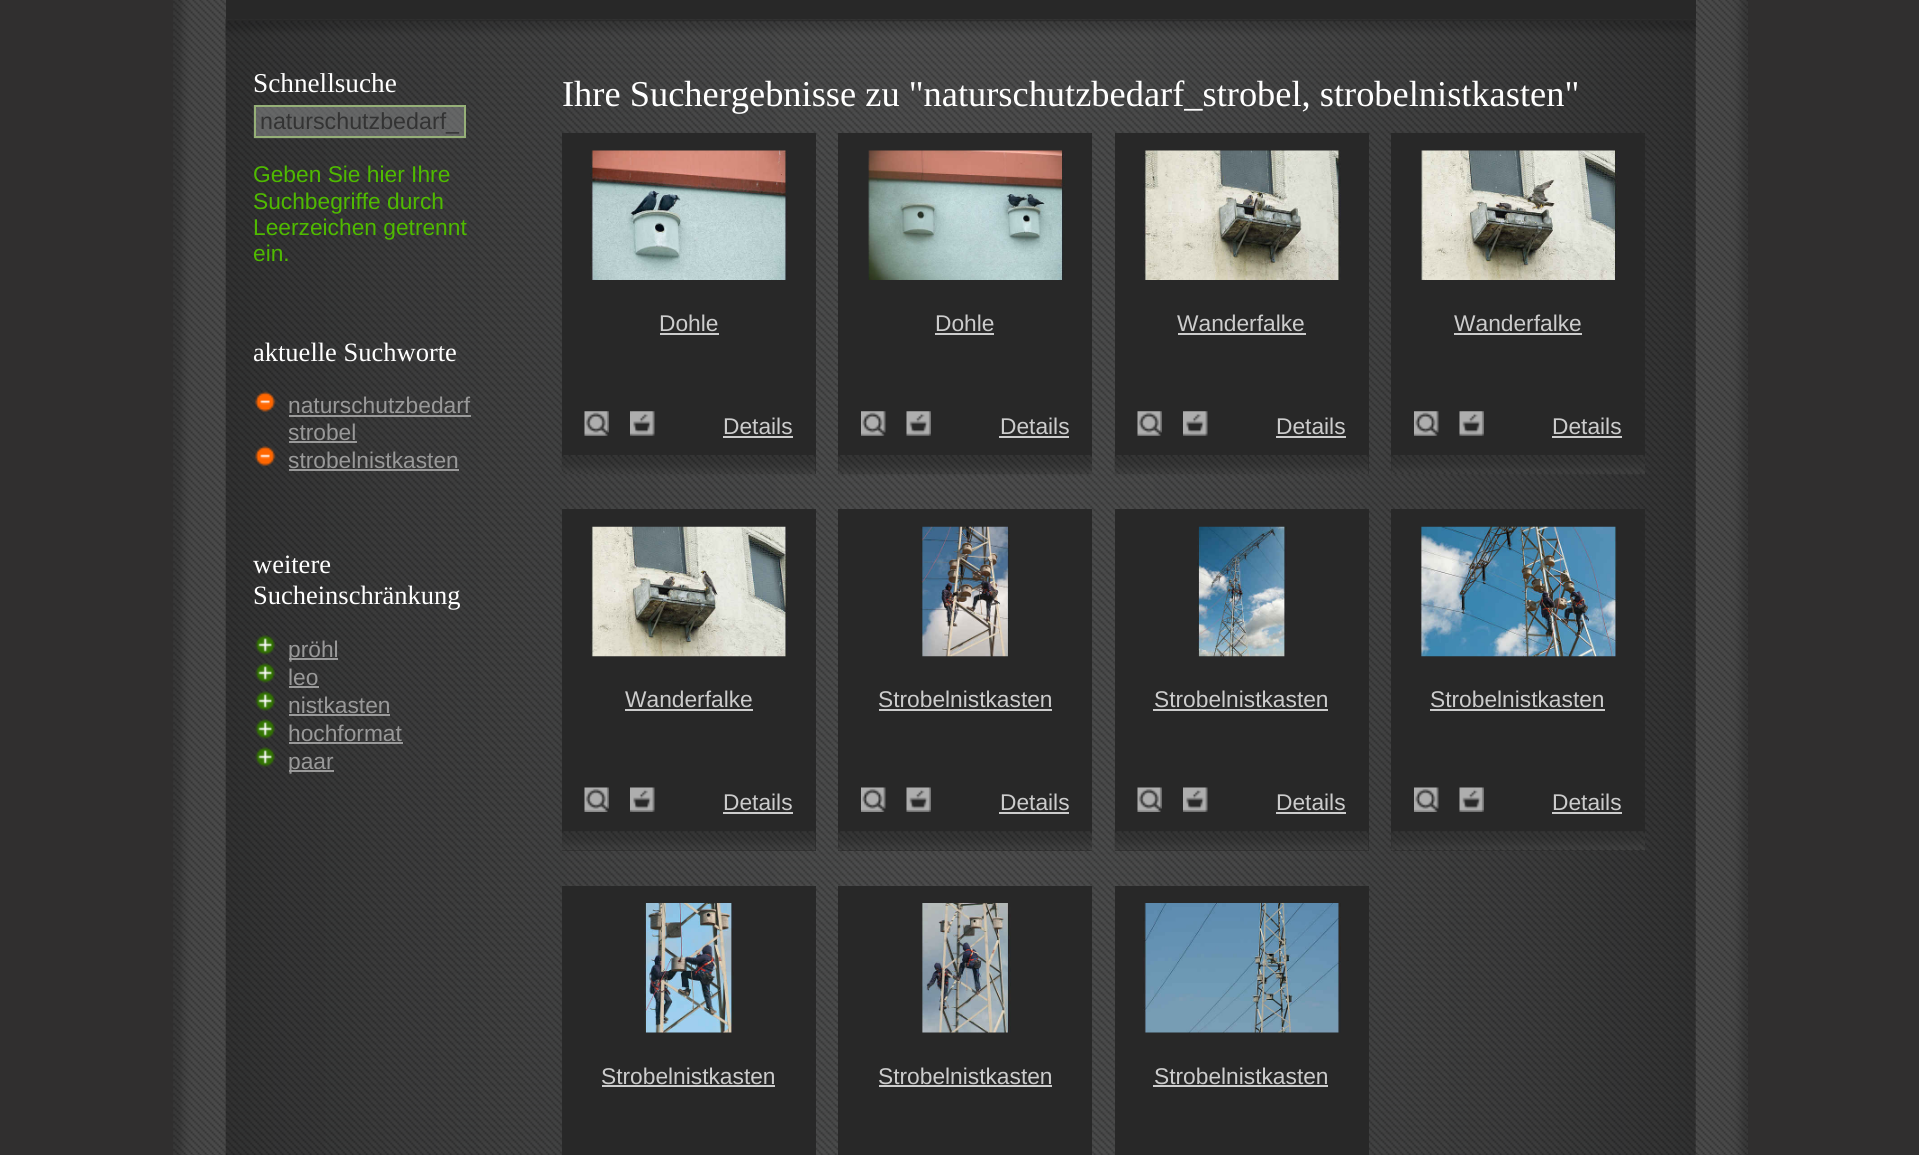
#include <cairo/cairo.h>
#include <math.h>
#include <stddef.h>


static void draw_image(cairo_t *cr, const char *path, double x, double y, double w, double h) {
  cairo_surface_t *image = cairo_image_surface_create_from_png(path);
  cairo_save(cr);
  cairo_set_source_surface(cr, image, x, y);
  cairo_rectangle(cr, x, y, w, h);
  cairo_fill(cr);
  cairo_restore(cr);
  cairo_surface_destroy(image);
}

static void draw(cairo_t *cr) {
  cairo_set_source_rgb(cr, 48 / 255.0, 47 / 255.0, 47 / 255.0);
  cairo_paint(cr);
  draw_image(cr, "images/1.png", 173, 0, 1575, 1155);
  cairo_set_source_rgb(cr, 40 / 255.0, 40 / 255.0, 40 / 255.0);
  cairo_rectangle(cr, 226, 0, 1470, 19);
  cairo_fill(cr);
  draw_image(cr, "images/2.png", 225, 19, 1471, 1136);
  draw_image(cr, "images/3.png", 225, 19, 1471, 21);
  draw_image(cr, "images/4.png", 253, 105, 213, 34);
  cairo_rectangle(cr, 255, 106, 210, 31);
  cairo_set_source_rgb(cr, 149 / 255.0, 175 / 255.0, 119 / 255.0);
  cairo_stroke(cr);
  draw_image(cr, "images/5.png", 255, 391, 21, 21);
  cairo_set_source_rgb(cr, 153 / 255.0, 153 / 255.0, 153 / 255.0);
  cairo_rectangle(cr, 289, 415, 182, 2);
  cairo_fill(cr);
  cairo_rectangle(cr, 289, 441, 68, 2);
  cairo_fill(cr);
  draw_image(cr, "images/6.png", 255, 446, 21, 20);
  cairo_rectangle(cr, 289, 469, 170, 2);
  cairo_fill(cr);
  draw_image(cr, "images/7.png", 255, 635, 20, 20);
  cairo_rectangle(cr, 289, 658, 49, 2);
  cairo_fill(cr);
  draw_image(cr, "images/7.png", 255, 663, 20, 20);
  cairo_rectangle(cr, 289, 686, 30, 2);
  cairo_fill(cr);
  draw_image(cr, "images/8.png", 255, 691, 20, 20);
  cairo_rectangle(cr, 289, 714, 101, 2);
  cairo_fill(cr);
  draw_image(cr, "images/8.png", 255, 719, 20, 20);
  cairo_rectangle(cr, 289, 742, 114, 2);
  cairo_fill(cr);
  draw_image(cr, "images/8.png", 255, 747, 20, 20);
  cairo_rectangle(cr, 289, 770, 45, 2);
  cairo_fill(cr);
  cairo_set_source_rgb(cr, 40 / 255.0, 40 / 255.0, 40 / 255.0);
  cairo_rectangle(cr, 562, 133, 254, 341);
  cairo_fill(cr);
  draw_image(cr, "images/9.png", 590, 150, 198, 130);
  cairo_set_source_rgb(cr, 204 / 255.0, 204 / 255.0, 204 / 255.0);
  cairo_rectangle(cr, 660, 333, 59, 2);
  cairo_fill(cr);
  draw_image(cr, "images/10.png", 584, 411, 25, 25);
  draw_image(cr, "images/11.png", 630, 411, 25, 25);
  cairo_rectangle(cr, 723, 436, 70, 2);
  cairo_fill(cr);
  draw_image(cr, "images/12.png", 561, 455, 255, 20);
  cairo_set_source_rgb(cr, 40 / 255.0, 40 / 255.0, 40 / 255.0);
  cairo_rectangle(cr, 838, 133, 254, 341);
  cairo_fill(cr);
  draw_image(cr, "images/13.png", 868, 150, 197, 130);
  cairo_set_source_rgb(cr, 204 / 255.0, 204 / 255.0, 204 / 255.0);
  cairo_rectangle(cr, 935, 333, 59, 2);
  cairo_fill(cr);
  draw_image(cr, "images/14.png", 861, 411, 25, 25);
  draw_image(cr, "images/15.png", 906, 411, 25, 25);
  cairo_rectangle(cr, 999, 436, 70, 2);
  cairo_fill(cr);
  draw_image(cr, "images/16.png", 838, 455, 254, 20);
  cairo_set_source_rgb(cr, 40 / 255.0, 40 / 255.0, 40 / 255.0);
  cairo_rectangle(cr, 1115, 133, 254, 341);
  cairo_fill(cr);
  draw_image(cr, "images/17.png", 1143, 150, 198, 130);
  cairo_set_source_rgb(cr, 204 / 255.0, 204 / 255.0, 204 / 255.0);
  cairo_rectangle(cr, 1178, 333, 128, 2);
  cairo_fill(cr);
  draw_image(cr, "images/18.png", 1137, 411, 25, 25);
  draw_image(cr, "images/11.png", 1183, 411, 25, 25);
  cairo_rectangle(cr, 1276, 436, 70, 2);
  cairo_fill(cr);
  draw_image(cr, "images/19.png", 1114, 455, 255, 20);
  cairo_set_source_rgb(cr, 40 / 255.0, 40 / 255.0, 40 / 255.0);
  cairo_rectangle(cr, 1391, 133, 254, 341);
  cairo_fill(cr);
  draw_image(cr, "images/20.png", 1421, 150, 197, 130);
  cairo_set_source_rgb(cr, 204 / 255.0, 204 / 255.0, 204 / 255.0);
  cairo_rectangle(cr, 1454, 333, 128, 2);
  cairo_fill(cr);
  draw_image(cr, "images/21.png", 1414, 411, 25, 25);
  draw_image(cr, "images/15.png", 1459, 411, 25, 25);
  cairo_rectangle(cr, 1552, 436, 70, 2);
  cairo_fill(cr);
  draw_image(cr, "images/22.png", 1391, 455, 254, 20);
  cairo_set_source_rgb(cr, 40 / 255.0, 40 / 255.0, 40 / 255.0);
  cairo_rectangle(cr, 562, 509, 254, 342);
  cairo_fill(cr);
  draw_image(cr, "images/23.png", 590, 526, 198, 131);
  cairo_set_source_rgb(cr, 204 / 255.0, 204 / 255.0, 204 / 255.0);
  cairo_rectangle(cr, 625, 709, 128, 2);
  cairo_fill(cr);
  draw_image(cr, "images/24.png", 584, 787, 25, 25);
  draw_image(cr, "images/25.png", 630, 787, 25, 25);
  cairo_rectangle(cr, 723, 812, 70, 2);
  cairo_fill(cr);
  draw_image(cr, "images/26.png", 562, 831, 254, 20);
  cairo_set_source_rgb(cr, 40 / 255.0, 40 / 255.0, 40 / 255.0);
  cairo_rectangle(cr, 838, 509, 254, 342);
  cairo_fill(cr);
  draw_image(cr, "images/27.png", 920, 526, 90, 131);
  cairo_set_source_rgb(cr, 204 / 255.0, 204 / 255.0, 204 / 255.0);
  cairo_rectangle(cr, 879, 709, 173, 2);
  cairo_fill(cr);
  draw_image(cr, "images/28.png", 861, 787, 25, 25);
  draw_image(cr, "images/29.png", 906, 787, 25, 25);
  cairo_rectangle(cr, 999, 812, 70, 2);
  cairo_fill(cr);
  draw_image(cr, "images/30.png", 838, 831, 254, 20);
  cairo_set_source_rgb(cr, 40 / 255.0, 40 / 255.0, 40 / 255.0);
  cairo_rectangle(cr, 1115, 509, 254, 342);
  cairo_fill(cr);
  draw_image(cr, "images/31.png", 1197, 526, 90, 131);
  cairo_set_source_rgb(cr, 204 / 255.0, 204 / 255.0, 204 / 255.0);
  cairo_rectangle(cr, 1153, 709, 175, 2);
  cairo_fill(cr);
  draw_image(cr, "images/32.png", 1137, 787, 25, 25);
  draw_image(cr, "images/25.png", 1183, 787, 25, 25);
  cairo_rectangle(cr, 1276, 812, 70, 2);
  cairo_fill(cr);
  draw_image(cr, "images/33.png", 1114, 831, 255, 20);
  cairo_set_source_rgb(cr, 40 / 255.0, 40 / 255.0, 40 / 255.0);
  cairo_rectangle(cr, 1391, 509, 254, 342);
  cairo_fill(cr);
  draw_image(cr, "images/34.png", 1420, 526, 198, 131);
  cairo_set_source_rgb(cr, 204 / 255.0, 204 / 255.0, 204 / 255.0);
  cairo_rectangle(cr, 1430, 709, 175, 2);
  cairo_fill(cr);
  draw_image(cr, "images/35.png", 1414, 787, 25, 25);
  draw_image(cr, "images/29.png", 1459, 787, 25, 25);
  cairo_rectangle(cr, 1552, 812, 70, 2);
  cairo_fill(cr);
  draw_image(cr, "images/30.png", 1391, 831, 254, 20);
  cairo_set_source_rgb(cr, 40 / 255.0, 40 / 255.0, 40 / 255.0);
  cairo_rectangle(cr, 562, 886, 254, 269);
  cairo_fill(cr);
  draw_image(cr, "images/36.png", 644, 903, 90, 130);
  cairo_set_source_rgb(cr, 204 / 255.0, 204 / 255.0, 204 / 255.0);
  cairo_rectangle(cr, 602, 1085, 173, 2);
  cairo_fill(cr);
  cairo_set_source_rgb(cr, 40 / 255.0, 40 / 255.0, 40 / 255.0);
  cairo_rectangle(cr, 838, 886, 254, 269);
  cairo_fill(cr);
  draw_image(cr, "images/37.png", 921, 903, 90, 130);
  cairo_set_source_rgb(cr, 204 / 255.0, 204 / 255.0, 204 / 255.0);
  cairo_rectangle(cr, 879, 1085, 173, 2);
  cairo_fill(cr);
  cairo_set_source_rgb(cr, 40 / 255.0, 40 / 255.0, 40 / 255.0);
  cairo_rectangle(cr, 1115, 886, 254, 269);
  cairo_fill(cr);
  draw_image(cr, "images/38.png", 1143, 903, 198, 130);
  cairo_set_source_rgb(cr, 204 / 255.0, 204 / 255.0, 204 / 255.0);
  cairo_rectangle(cr, 1153, 1085, 175, 2);
  cairo_fill(cr);
  cairo_select_font_face(cr, "Liberation Serif", CAIRO_FONT_SLANT_NORMAL, CAIRO_FONT_WEIGHT_NORMAL);
  cairo_set_font_size(cr, 27.25);
  cairo_set_source_rgb(cr, 1, 1, 1);
  cairo_move_to(cr, 253, 92);
  cairo_show_text(cr, "Schnellsuche");
  cairo_select_font_face(cr, "Liberation Sans", CAIRO_FONT_SLANT_NORMAL, CAIRO_FONT_WEIGHT_NORMAL);
  cairo_set_font_size(cr, 23.25);
  cairo_set_source_rgb(cr, 51 / 255.0, 51 / 255.0, 51 / 255.0);
  cairo_move_to(cr, 260, 129);
  cairo_show_text(cr, "naturschutzbedarf_");
  cairo_set_font_size(cr, 22.75);
  cairo_set_source_rgb(cr, 79 / 255.0, 186 / 255.0, 0);
  cairo_move_to(cr, 253, 182);
  cairo_show_text(cr, "Geben Sie hier Ihre");
  cairo_move_to(cr, 253, 209);
  cairo_show_text(cr, "Suchbegriffe durch");
  cairo_move_to(cr, 253, 235);
  cairo_show_text(cr, "Leerzeichen getrennt");
  cairo_move_to(cr, 253, 261);
  cairo_show_text(cr, "ein.");
  cairo_select_font_face(cr, "Liberation Serif", CAIRO_FONT_SLANT_NORMAL, CAIRO_FONT_WEIGHT_NORMAL);
  cairo_set_font_size(cr, 26.5);
  cairo_set_source_rgb(cr, 1, 1, 1);
  cairo_move_to(cr, 253, 361);
  cairo_show_text(cr, "aktuelle Suchworte");
  cairo_select_font_face(cr, "Liberation Sans", CAIRO_FONT_SLANT_NORMAL, CAIRO_FONT_WEIGHT_NORMAL);
  cairo_set_font_size(cr, 22.75);
  cairo_set_source_rgb(cr, 153 / 255.0, 153 / 255.0, 153 / 255.0);
  cairo_move_to(cr, 288, 413);
  cairo_show_text(cr, "naturschutzbedarf");
  cairo_move_to(cr, 288, 440);
  cairo_show_text(cr, "strobel");
  cairo_move_to(cr, 288, 468);
  cairo_show_text(cr, "strobelnistkasten");
  cairo_select_font_face(cr, "Liberation Serif", CAIRO_FONT_SLANT_NORMAL, CAIRO_FONT_WEIGHT_NORMAL);
  cairo_set_font_size(cr, 26.5);
  cairo_set_source_rgb(cr, 1, 1, 1);
  cairo_move_to(cr, 253, 573);
  cairo_show_text(cr, "weitere");
  cairo_move_to(cr, 253, 604);
  cairo_show_text(cr, "Sucheinschränkung");
  cairo_select_font_face(cr, "Liberation Sans", CAIRO_FONT_SLANT_NORMAL, CAIRO_FONT_WEIGHT_NORMAL);
  cairo_set_font_size(cr, 22.75);
  cairo_set_source_rgb(cr, 153 / 255.0, 153 / 255.0, 153 / 255.0);
  cairo_move_to(cr, 288, 657);
  cairo_show_text(cr, "pröhl");
  cairo_move_to(cr, 288, 685);
  cairo_show_text(cr, "leo");
  cairo_move_to(cr, 288, 713);
  cairo_show_text(cr, "nistkasten");
  cairo_move_to(cr, 288, 741);
  cairo_show_text(cr, "hochformat");
  cairo_move_to(cr, 288, 769);
  cairo_show_text(cr, "paar");
  cairo_select_font_face(cr, "Liberation Serif", CAIRO_FONT_SLANT_NORMAL, CAIRO_FONT_WEIGHT_NORMAL);
  cairo_set_font_size(cr, 36.4);
  cairo_set_source_rgb(cr, 1, 1, 1);
  cairo_move_to(cr, 562, 106);
  cairo_show_text(cr, "Ihre Suchergebnisse zu \"naturschutzbedarf_strobel, strobelnistkasten\"");
  cairo_select_font_face(cr, "Liberation Sans", CAIRO_FONT_SLANT_NORMAL, CAIRO_FONT_WEIGHT_NORMAL);
  cairo_set_font_size(cr, 22.75);
  cairo_set_source_rgb(cr, 204 / 255.0, 204 / 255.0, 204 / 255.0);
  cairo_move_to(cr, 659, 331);
  cairo_show_text(cr, "Dohle");
  cairo_move_to(cr, 723, 434);
  cairo_show_text(cr, "Details");
  cairo_move_to(cr, 935, 331);
  cairo_show_text(cr, "Dohle");
  cairo_move_to(cr, 1000, 434);
  cairo_show_text(cr, "Details");
  cairo_move_to(cr, 1177, 331);
  cairo_show_text(cr, "Wanderfalke");
  cairo_move_to(cr, 1276, 434);
  cairo_show_text(cr, "Details");
  cairo_move_to(cr, 1454, 331);
  cairo_show_text(cr, "Wanderfalke");
  cairo_move_to(cr, 1552, 434);
  cairo_show_text(cr, "Details");
  cairo_move_to(cr, 625, 707);
  cairo_show_text(cr, "Wanderfalke");
  cairo_move_to(cr, 723, 810);
  cairo_show_text(cr, "Details");
  cairo_move_to(cr, 878, 707);
  cairo_show_text(cr, "Strobelnistkasten");
  cairo_move_to(cr, 1000, 810);
  cairo_show_text(cr, "Details");
  cairo_move_to(cr, 1154, 707);
  cairo_show_text(cr, "Strobelnistkasten");
  cairo_move_to(cr, 1276, 810);
  cairo_show_text(cr, "Details");
  cairo_move_to(cr, 1430, 707);
  cairo_show_text(cr, "Strobelnistkasten");
  cairo_move_to(cr, 1552, 810);
  cairo_show_text(cr, "Details");
  cairo_move_to(cr, 601, 1084);
  cairo_show_text(cr, "Strobelnistkasten");
  cairo_move_to(cr, 878, 1084);
  cairo_show_text(cr, "Strobelnistkasten");
  cairo_move_to(cr, 1154, 1084);
  cairo_show_text(cr, "Strobelnistkasten");
}

int main(void) {
  cairo_surface_t *surface = cairo_image_surface_create(CAIRO_FORMAT_RGB24, 1919, 1155);
  cairo_t *cr = cairo_create(surface);
  cairo_font_options_t *options = cairo_font_options_create();
  cairo_font_options_set_hint_metrics(options, CAIRO_HINT_METRICS_OFF);
  cairo_font_options_set_hint_style(options, CAIRO_HINT_STYLE_NONE);
  cairo_set_font_options(cr, options);
  cairo_set_miter_limit(cr, 4);
  draw(cr);
  cairo_surface_write_to_png(surface, "out.png");
  cairo_font_options_destroy(options);
  cairo_destroy(cr);
  cairo_surface_destroy(surface);
  return 0;
}
